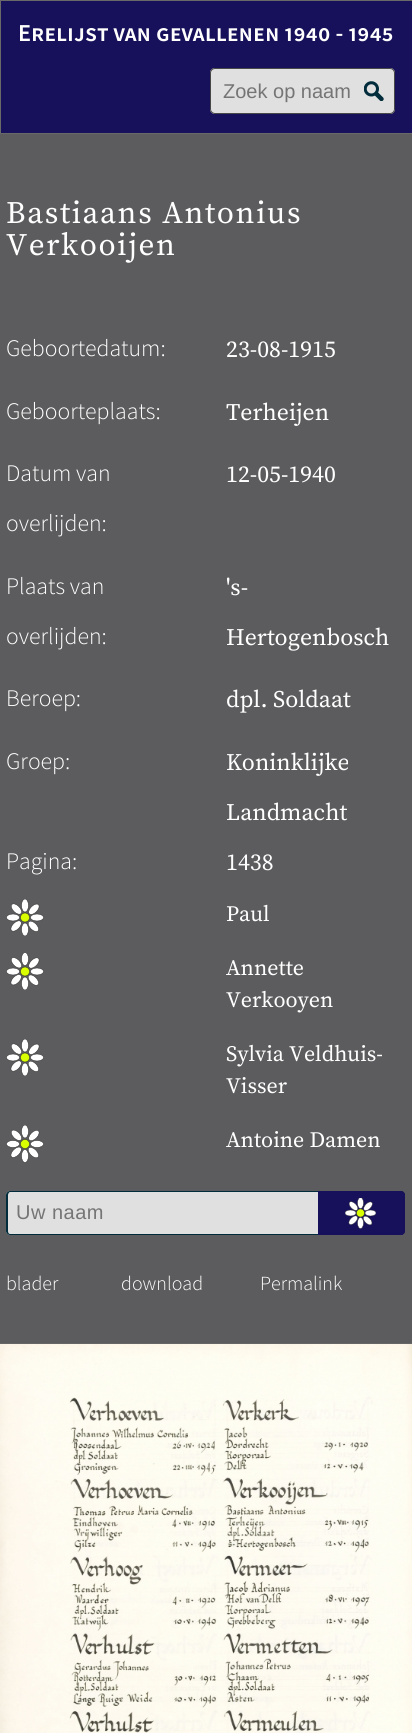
#include <cairo/cairo.h>
#include <math.h>
#include <stddef.h>


static void draw_spaced(cairo_t *cr, double x, double y, const char *s, double letter, double word) {
  cairo_move_to(cr, x, y);
  while (*s) {
    char ch[5] = {0};
    int n = 0;
    do ch[n++] = *s++; while ((*s & 0xC0) == 0x80);
    cairo_show_text(cr, ch);
    cairo_rel_move_to(cr, letter + word * (*ch == ' '), 0);
  }
}

static void rounded_rect(cairo_t *cr, double x, double y, double w, double h, double r) {
  cairo_new_sub_path(cr);
  cairo_arc(cr, x + w - r, y + h - r, r, 0, M_PI / 2);
  cairo_arc(cr, x + r, y + h - r, r, M_PI / 2, M_PI);
  cairo_arc(cr, x + r, y + r, r, M_PI, 1.5 * M_PI);
  cairo_arc(cr, x + w - r, y + r, r, 1.5 * M_PI, 2 * M_PI);
  cairo_close_path(cr);
}

static void draw_image(cairo_t *cr, const char *path, double x, double y, double w, double h) {
  cairo_surface_t *image = cairo_image_surface_create_from_png(path);
  cairo_save(cr);
  cairo_set_source_surface(cr, image, x, y);
  cairo_rectangle(cr, x, y, w, h);
  cairo_fill(cr);
  cairo_restore(cr);
  cairo_surface_destroy(image);
}

static void draw(cairo_t *cr) {
  cairo_set_source_rgb(cr, 92 / 255.0, 92 / 255.0, 94 / 255.0);
  cairo_paint(cr);
  cairo_set_source_rgb(cr, 22 / 255.0, 17 / 255.0, 90 / 255.0);
  cairo_rectangle(cr, 0.5, 0.5, 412, 133);
  cairo_fill_preserve(cr);
  cairo_set_source_rgb(cr, 105 / 255.0, 105 / 255.0, 105 / 255.0);
  cairo_set_line_width(cr, 1);
  cairo_stroke(cr);
  cairo_set_source_rgb(cr, 224 / 255.0, 224 / 255.0, 224 / 255.0);
  rounded_rect(cr, 210, 68, 185, 46, 5);
  cairo_fill(cr);
  draw_image(cr, "images/1.png", 391, 87, 1, 7);
  rounded_rect(cr, 210.5, 68.5, 184, 45, 4.5);
  cairo_set_source_rgb(cr, 72 / 255.0, 72 / 255.0, 72 / 255.0);
  cairo_stroke(cr);
  draw_image(cr, "images/2.png", 364, 81, 20, 20);
  draw_image(cr, "images/3.png", 6, 899, 38, 37);
  draw_image(cr, "images/4.png", 6, 953, 38, 37);
  draw_image(cr, "images/3.png", 6, 1039, 38, 37);
  draw_image(cr, "images/5.png", 6, 1125, 38, 38);
  cairo_set_source_rgb(cr, 224 / 255.0, 224 / 255.0, 224 / 255.0);
  cairo_new_path(cr);
  cairo_move_to(cr, 10, 1191);
  cairo_line_to(cr, 319, 1191);
  cairo_line_to(cr, 319, 1235);
  cairo_line_to(cr, 10, 1235);
  cairo_curve_to(cr, 8, 1235, 6, 1233, 6, 1231);
  cairo_line_to(cr, 6, 1195);
  cairo_curve_to(cr, 6, 1193, 8, 1191, 10, 1191);
  cairo_close_path(cr);
  cairo_fill(cr);
  cairo_set_source_rgb(cr, 0, 44 / 255.0, 60 / 255.0);
  cairo_set_fill_rule(cr, CAIRO_FILL_RULE_EVEN_ODD);
  cairo_new_path(cr);
  cairo_move_to(cr, 10, 1191);
  cairo_line_to(cr, 319, 1191);
  cairo_line_to(cr, 319, 1235);
  cairo_line_to(cr, 10, 1235);
  cairo_curve_to(cr, 8, 1235, 6, 1233, 6, 1231);
  cairo_line_to(cr, 6, 1195);
  cairo_curve_to(cr, 6, 1193, 8, 1191, 10, 1191);
  cairo_close_path(cr);
  cairo_move_to(cr, 10, 1192);
  cairo_line_to(cr, 319, 1192);
  cairo_line_to(cr, 319, 1234);
  cairo_line_to(cr, 10, 1234);
  cairo_curve_to(cr, 9, 1234, 8, 1233, 8, 1231);
  cairo_line_to(cr, 8, 1195);
  cairo_curve_to(cr, 8, 1194, 9, 1192, 10, 1192);
  cairo_close_path(cr);
  cairo_fill(cr);
  cairo_set_source_rgb(cr, 22 / 255.0, 17 / 255.0, 90 / 255.0);
  cairo_new_path(cr);
  cairo_move_to(cr, 318, 1191);
  cairo_line_to(cr, 401, 1191);
  cairo_curve_to(cr, 403, 1191, 405, 1193, 405, 1195);
  cairo_line_to(cr, 405, 1231);
  cairo_curve_to(cr, 405, 1233, 403, 1235, 401, 1235);
  cairo_line_to(cr, 318, 1235);
  cairo_close_path(cr);
  cairo_fill(cr);
  draw_image(cr, "images/6.png", 345, 1198, 31, 31);
  cairo_new_path(cr);
  cairo_move_to(cr, 318.5, 1191.5);
  cairo_line_to(cr, 401, 1191.5);
  cairo_curve_to(cr, 403, 1191.5, 404.5, 1193, 404.5, 1195);
  cairo_line_to(cr, 404.5, 1231);
  cairo_curve_to(cr, 404.5, 1233, 403, 1234.5, 401, 1234.5);
  cairo_line_to(cr, 318.5, 1234.5);
  cairo_close_path(cr);
  cairo_stroke(cr);
  draw_image(cr, "images/7.png", 0, 1343, 412, 390);
  cairo_select_font_face(cr, "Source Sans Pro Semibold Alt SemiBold", CAIRO_FONT_SLANT_NORMAL, CAIRO_FONT_WEIGHT_NORMAL);
  cairo_set_font_size(cr, 24.3);
  cairo_set_source_rgb(cr, 1, 1, 1);
  cairo_move_to(cr, 18, 41);
  cairo_show_text(cr, "Erelijst van gevallenen 1940 - 1945");
  cairo_select_font_face(cr, "Liberation Sans", CAIRO_FONT_SLANT_NORMAL, CAIRO_FONT_WEIGHT_NORMAL);
  cairo_set_font_size(cr, 20);
  cairo_set_source_rgb(cr, 117 / 255.0, 117 / 255.0, 117 / 255.0);
  cairo_move_to(cr, 223, 98);
  cairo_show_text(cr, "Zoek op naam");
  cairo_select_font_face(cr, "Source Serif Pro", CAIRO_FONT_SLANT_NORMAL, CAIRO_FONT_WEIGHT_NORMAL);
  cairo_set_font_size(cr, 31.25);
  cairo_set_source_rgb(cr, 1, 1, 1);
  draw_spaced(cr, 6, 223, "Bastiaans Antonius", 1.6, 0);
  draw_spaced(cr, 6, 255, "Verkooijen", 1.6, 0);
  cairo_select_font_face(cr, "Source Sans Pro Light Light", CAIRO_FONT_SLANT_NORMAL, CAIRO_FONT_WEIGHT_NORMAL);
  cairo_set_font_size(cr, 23.75);
  cairo_move_to(cr, 6, 356);
  cairo_show_text(cr, "Geboortedatum:");
  cairo_select_font_face(cr, "Source Serif Pro", CAIRO_FONT_SLANT_NORMAL, CAIRO_FONT_WEIGHT_NORMAL);
  cairo_move_to(cr, 226, 357);
  cairo_show_text(cr, "23-08-1915");
  cairo_select_font_face(cr, "Source Sans Pro Light Light", CAIRO_FONT_SLANT_NORMAL, CAIRO_FONT_WEIGHT_NORMAL);
  cairo_move_to(cr, 6, 419);
  cairo_show_text(cr, "Geboorteplaats:");
  cairo_select_font_face(cr, "Source Serif Pro", CAIRO_FONT_SLANT_NORMAL, CAIRO_FONT_WEIGHT_NORMAL);
  cairo_move_to(cr, 226, 420);
  cairo_show_text(cr, "Terheijen");
  cairo_select_font_face(cr, "Source Sans Pro Light Light", CAIRO_FONT_SLANT_NORMAL, CAIRO_FONT_WEIGHT_NORMAL);
  cairo_move_to(cr, 6, 481);
  cairo_show_text(cr, "Datum van");
  cairo_move_to(cr, 6, 531);
  cairo_show_text(cr, "overlijden:");
  cairo_select_font_face(cr, "Source Serif Pro", CAIRO_FONT_SLANT_NORMAL, CAIRO_FONT_WEIGHT_NORMAL);
  cairo_move_to(cr, 226, 482);
  cairo_show_text(cr, "12-05-1940");
  cairo_select_font_face(cr, "Source Sans Pro Light Light", CAIRO_FONT_SLANT_NORMAL, CAIRO_FONT_WEIGHT_NORMAL);
  cairo_move_to(cr, 6, 594);
  cairo_show_text(cr, "Plaats van");
  cairo_move_to(cr, 6, 644);
  cairo_show_text(cr, "overlijden:");
  cairo_select_font_face(cr, "Source Serif Pro", CAIRO_FONT_SLANT_NORMAL, CAIRO_FONT_WEIGHT_NORMAL);
  cairo_move_to(cr, 226, 595);
  cairo_show_text(cr, "'s-");
  cairo_move_to(cr, 226, 645);
  cairo_show_text(cr, "Hertogenbosch");
  cairo_select_font_face(cr, "Source Sans Pro Light Light", CAIRO_FONT_SLANT_NORMAL, CAIRO_FONT_WEIGHT_NORMAL);
  cairo_move_to(cr, 6, 706);
  cairo_show_text(cr, "Beroep:");
  cairo_select_font_face(cr, "Source Serif Pro", CAIRO_FONT_SLANT_NORMAL, CAIRO_FONT_WEIGHT_NORMAL);
  cairo_move_to(cr, 226, 707);
  cairo_show_text(cr, "dpl. Soldaat");
  cairo_select_font_face(cr, "Source Sans Pro Light Light", CAIRO_FONT_SLANT_NORMAL, CAIRO_FONT_WEIGHT_NORMAL);
  cairo_move_to(cr, 6, 769);
  cairo_show_text(cr, "Groep:");
  cairo_select_font_face(cr, "Source Serif Pro", CAIRO_FONT_SLANT_NORMAL, CAIRO_FONT_WEIGHT_NORMAL);
  cairo_move_to(cr, 226, 770);
  cairo_show_text(cr, "Koninklijke");
  cairo_move_to(cr, 226, 820);
  cairo_show_text(cr, "Landmacht");
  cairo_select_font_face(cr, "Source Sans Pro Light Light", CAIRO_FONT_SLANT_NORMAL, CAIRO_FONT_WEIGHT_NORMAL);
  cairo_move_to(cr, 6, 869);
  cairo_show_text(cr, "Pagina:");
  cairo_select_font_face(cr, "Source Serif Pro", CAIRO_FONT_SLANT_NORMAL, CAIRO_FONT_WEIGHT_NORMAL);
  cairo_move_to(cr, 226, 870);
  cairo_show_text(cr, "1438");
  cairo_set_font_size(cr, 22);
  cairo_move_to(cr, 226, 921);
  cairo_show_text(cr, "Paul");
  cairo_move_to(cr, 226, 975);
  cairo_show_text(cr, "Annette");
  cairo_move_to(cr, 226, 1007);
  cairo_show_text(cr, "Verkooyen");
  cairo_move_to(cr, 226, 1061);
  cairo_show_text(cr, "Sylvia Veldhuis-");
  cairo_move_to(cr, 226, 1093);
  cairo_show_text(cr, "Visser");
  cairo_move_to(cr, 226, 1147);
  cairo_show_text(cr, "Antoine Damen");
  cairo_select_font_face(cr, "Liberation Sans", CAIRO_FONT_SLANT_NORMAL, CAIRO_FONT_WEIGHT_NORMAL);
  cairo_set_font_size(cr, 20);
  cairo_set_source_rgb(cr, 117 / 255.0, 117 / 255.0, 117 / 255.0);
  draw_spaced(cr, 16, 1219, "Uw naam", 0.5, 0);
  cairo_select_font_face(cr, "Source Sans Pro Light Light", CAIRO_FONT_SLANT_NORMAL, CAIRO_FONT_WEIGHT_NORMAL);
  cairo_set_source_rgb(cr, 1, 1, 1);
  cairo_move_to(cr, 6, 1290);
  cairo_show_text(cr, "blader");
  cairo_move_to(cr, 121, 1290);
  cairo_show_text(cr, "download");
  cairo_move_to(cr, 260, 1290);
  cairo_show_text(cr, "Permalink");
}

int main(void) {
  cairo_surface_t *surface = cairo_image_surface_create(CAIRO_FORMAT_RGB24, 412, 1733);
  cairo_t *cr = cairo_create(surface);
  cairo_font_options_t *options = cairo_font_options_create();
  cairo_font_options_set_hint_metrics(options, CAIRO_HINT_METRICS_OFF);
  cairo_font_options_set_hint_style(options, CAIRO_HINT_STYLE_NONE);
  cairo_set_font_options(cr, options);
  cairo_set_miter_limit(cr, 4);
  draw(cr);
  cairo_surface_write_to_png(surface, "out.png");
  cairo_font_options_destroy(options);
  cairo_destroy(cr);
  cairo_surface_destroy(surface);
  return 0;
}
